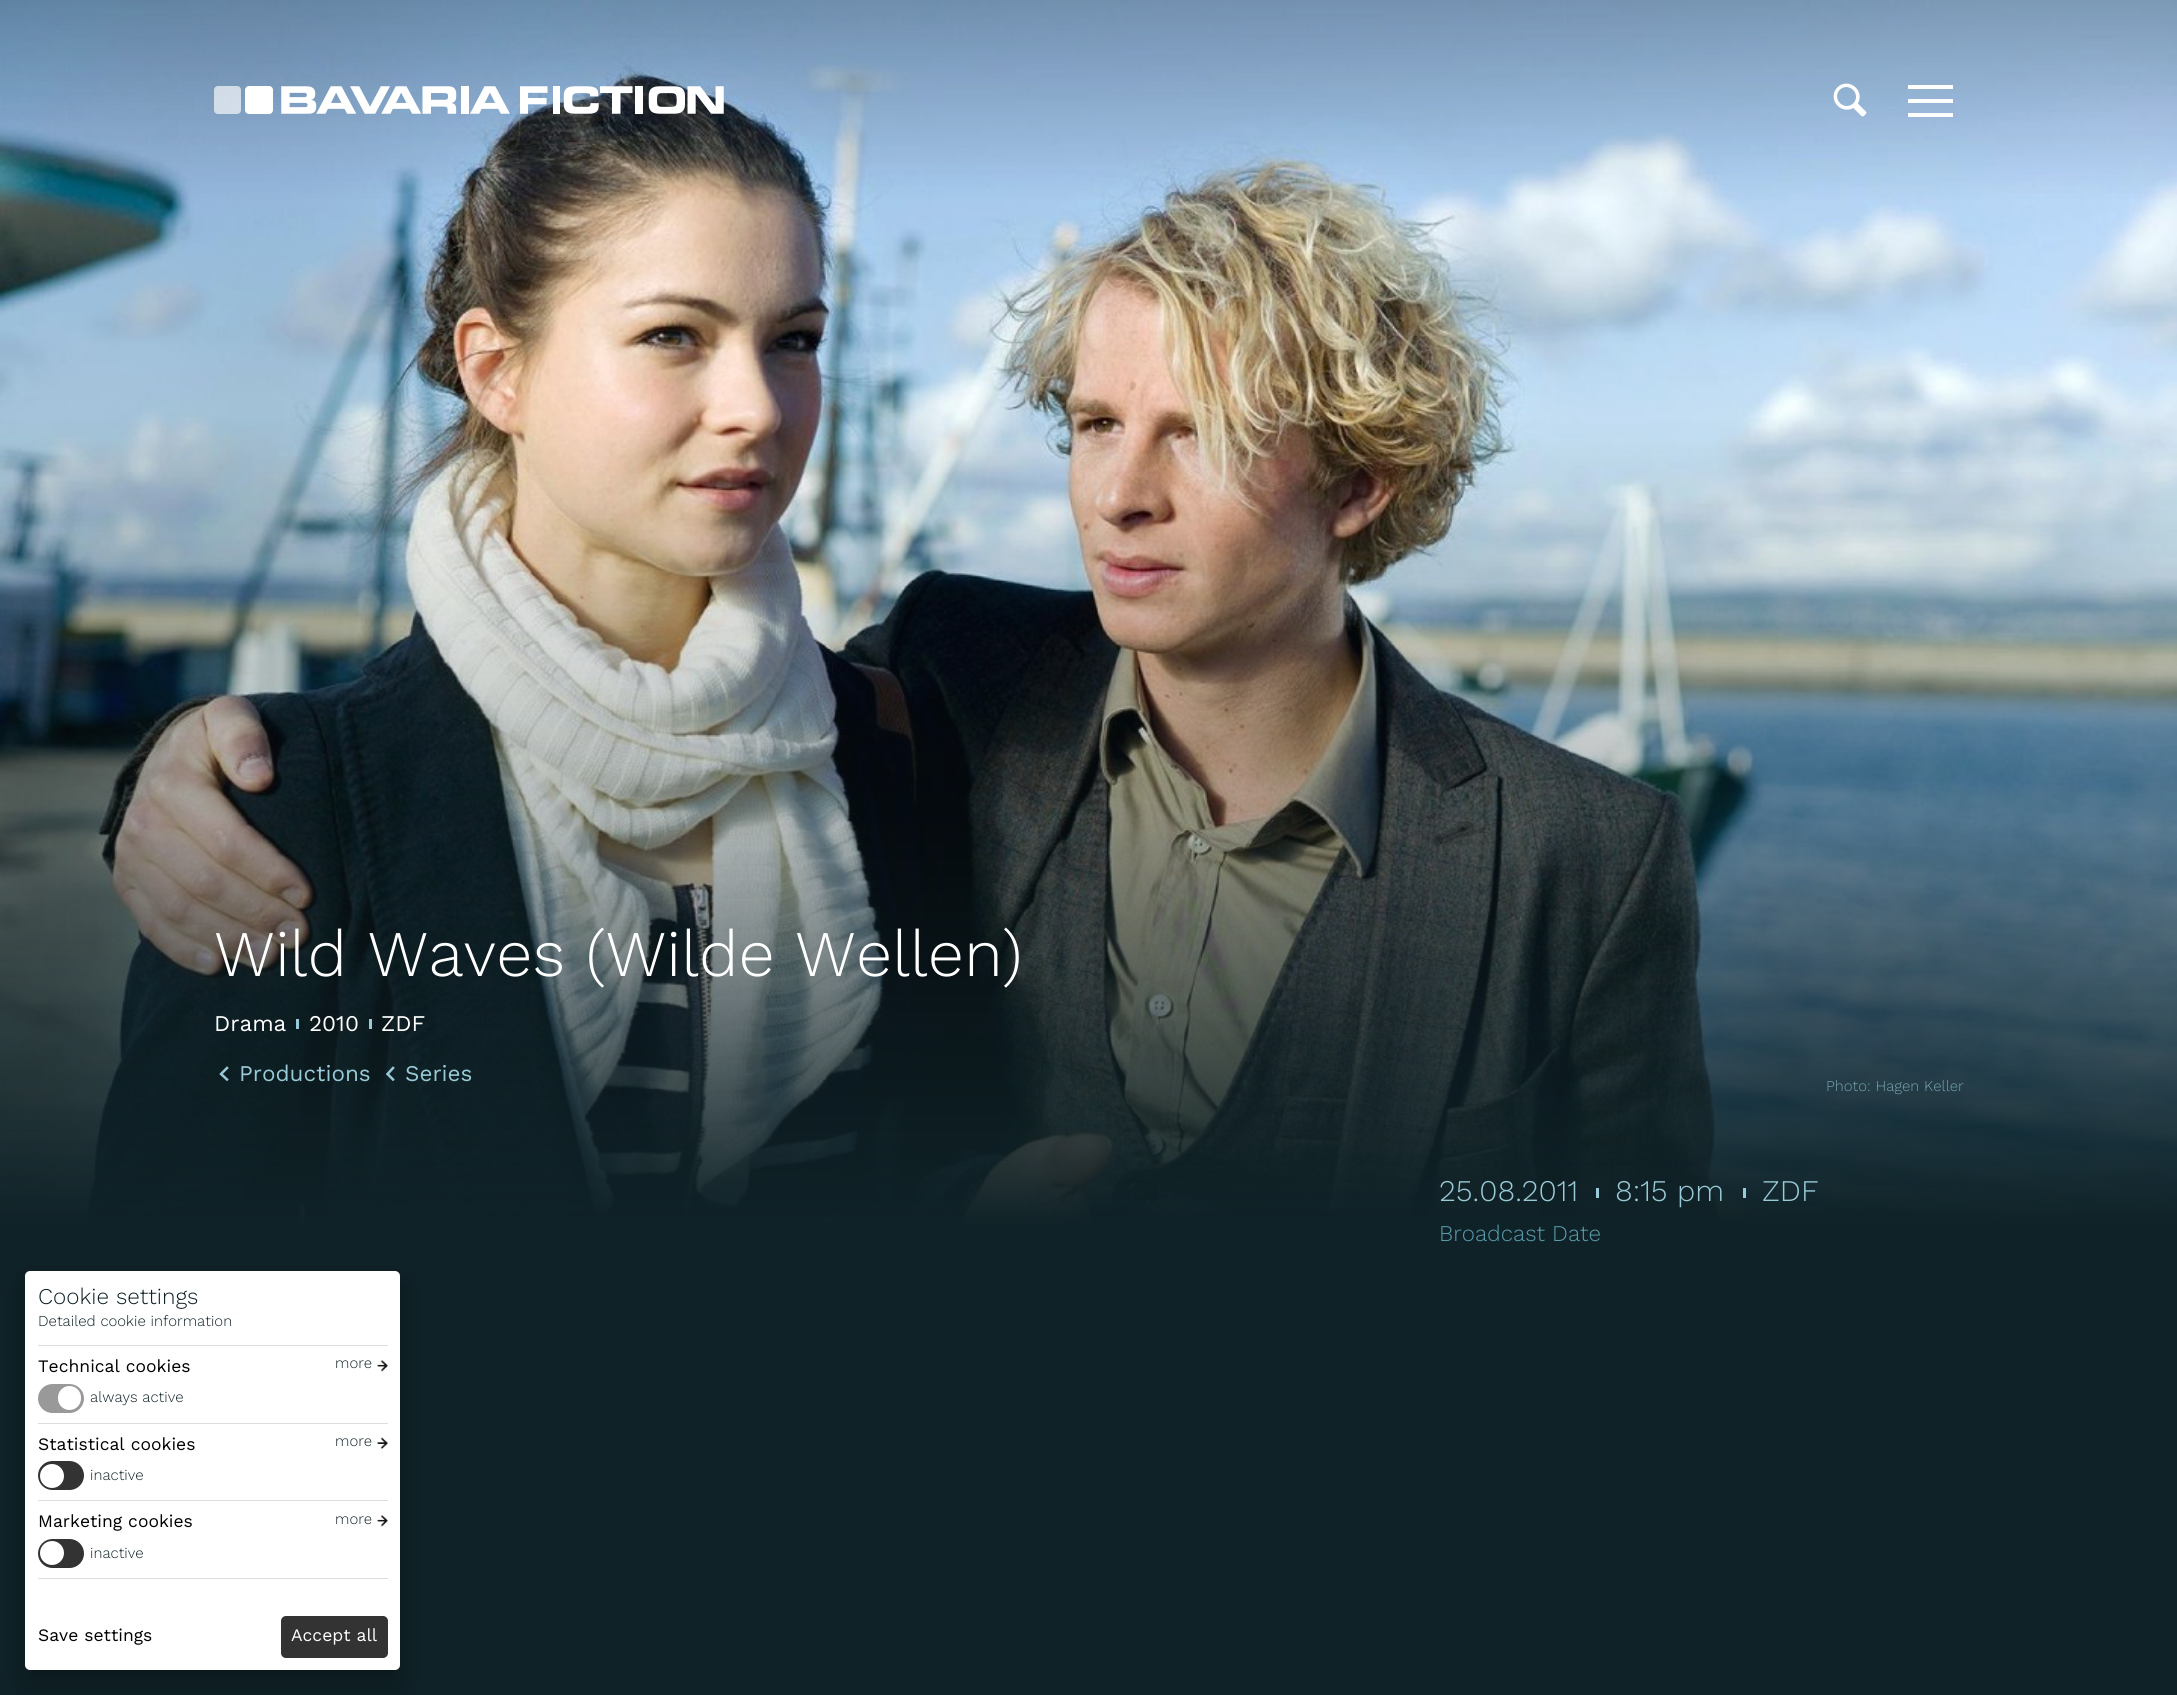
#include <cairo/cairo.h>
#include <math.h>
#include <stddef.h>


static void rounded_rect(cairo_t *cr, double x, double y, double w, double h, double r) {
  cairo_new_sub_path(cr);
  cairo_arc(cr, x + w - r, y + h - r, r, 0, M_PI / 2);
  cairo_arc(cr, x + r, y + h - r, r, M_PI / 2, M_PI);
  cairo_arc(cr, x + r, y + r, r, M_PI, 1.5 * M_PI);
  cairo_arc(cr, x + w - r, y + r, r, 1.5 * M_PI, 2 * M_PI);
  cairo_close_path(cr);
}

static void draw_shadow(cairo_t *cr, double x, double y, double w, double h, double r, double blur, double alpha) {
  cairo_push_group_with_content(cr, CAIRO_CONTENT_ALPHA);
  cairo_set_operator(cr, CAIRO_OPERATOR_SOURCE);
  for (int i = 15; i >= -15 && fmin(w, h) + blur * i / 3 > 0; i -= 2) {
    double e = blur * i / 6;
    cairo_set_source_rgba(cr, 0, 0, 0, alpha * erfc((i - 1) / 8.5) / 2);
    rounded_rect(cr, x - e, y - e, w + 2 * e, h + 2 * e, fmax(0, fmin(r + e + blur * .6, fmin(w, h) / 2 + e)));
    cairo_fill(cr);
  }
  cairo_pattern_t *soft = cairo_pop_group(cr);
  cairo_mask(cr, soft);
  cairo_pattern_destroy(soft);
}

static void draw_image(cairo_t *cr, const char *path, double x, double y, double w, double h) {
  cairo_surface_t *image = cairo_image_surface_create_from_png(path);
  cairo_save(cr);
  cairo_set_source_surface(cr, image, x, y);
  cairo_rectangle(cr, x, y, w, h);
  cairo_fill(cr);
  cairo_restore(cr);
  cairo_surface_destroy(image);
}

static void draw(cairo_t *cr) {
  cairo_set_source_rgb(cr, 15 / 255.0, 34 / 255.0, 39 / 255.0);
  cairo_paint(cr);
  draw_image(cr, "images/1.png", 0, 0, 2177, 1225);
  cairo_set_source_rgb(cr, 153 / 255.0, 202 / 255.0, 215 / 255.0);
  cairo_rectangle(cr, 296, 1019, 3, 10);
  cairo_fill(cr);
  cairo_rectangle(cr, 369, 1019, 3, 10);
  cairo_fill(cr);
  cairo_new_path(cr);
  cairo_move_to(cr, 227, 1068);
  cairo_line_to(cr, 221, 1074);
  cairo_line_to(cr, 227, 1079.5);
  cairo_set_line_width(cr, 2.5);
  cairo_set_line_cap(cr, CAIRO_LINE_CAP_SQUARE);
  cairo_stroke(cr);
  cairo_new_path(cr);
  cairo_move_to(cr, 393, 1068);
  cairo_line_to(cr, 387.5, 1074);
  cairo_line_to(cr, 393, 1079.5);
  cairo_stroke(cr);
  cairo_rectangle(cr, 1596, 1188, 3, 10);
  cairo_fill(cr);
  cairo_rectangle(cr, 1743, 1188, 3, 10);
  cairo_fill(cr);
  cairo_set_source_rgb(cr, 1, 1, 1);
  rounded_rect(cr, 245, 86, 28, 28, 4);
  cairo_fill(cr);
  cairo_set_source_rgba(cr, 1, 1, 1, 0.65);
  rounded_rect(cr, 214, 86, 27, 28, 4);
  cairo_fill(cr);
  draw_image(cr, "images/2.png", 281, 86, 443, 28);
  draw_image(cr, "images/3.png", 1833, 83, 34, 34);
  cairo_set_source_rgb(cr, 1, 1, 1);
  cairo_rectangle(cr, 1908, 85, 45, 4);
  cairo_fill(cr);
  cairo_rectangle(cr, 1908, 99, 45, 4);
  cairo_fill(cr);
  cairo_rectangle(cr, 1908, 113, 45, 4);
  cairo_fill(cr);
  cairo_set_source_rgb(cr, 0, 0, 0);
  draw_shadow(cr, 25, 1284, 375, 399, 5, 12.5, 0.3);
  cairo_set_source_rgb(cr, 1, 1, 1);
  rounded_rect(cr, 25, 1271, 375, 399, 5);
  cairo_fill(cr);
  cairo_set_source_rgb(cr, 221 / 255.0, 221 / 255.0, 221 / 255.0);
  cairo_rectangle(cr, 38, 1345, 350, 1);
  cairo_fill(cr);
  cairo_rectangle(cr, 38, 1423, 350, 1);
  cairo_fill(cr);
  draw_image(cr, "images/4.png", 377, 1360, 11, 12);
  cairo_set_source_rgb(cr, 153 / 255.0, 153 / 255.0, 153 / 255.0);
  rounded_rect(cr, 38, 1384, 46, 29, 14.5);
  cairo_fill(cr);
  cairo_set_source_rgb(cr, 1, 1, 1);
  rounded_rect(cr, 58, 1386, 23, 24, 11.5);
  cairo_fill(cr);
  cairo_set_source_rgb(cr, 221 / 255.0, 221 / 255.0, 221 / 255.0);
  cairo_rectangle(cr, 38, 1500, 350, 1);
  cairo_fill(cr);
  draw_image(cr, "images/5.png", 377, 1437, 11, 12);
  cairo_set_source_rgb(cr, 51 / 255.0, 51 / 255.0, 51 / 255.0);
  rounded_rect(cr, 38, 1461, 46, 29, 14.5);
  cairo_fill(cr);
  cairo_set_source_rgb(cr, 1, 1, 1);
  cairo_arc(cr, 52, 1476, 12, 0, 2 * M_PI);
  cairo_fill(cr);
  cairo_set_source_rgb(cr, 221 / 255.0, 221 / 255.0, 221 / 255.0);
  cairo_rectangle(cr, 38, 1578, 350, 1);
  cairo_fill(cr);
  draw_image(cr, "images/4.png", 377, 1515, 11, 12);
  cairo_set_source_rgb(cr, 51 / 255.0, 51 / 255.0, 51 / 255.0);
  rounded_rect(cr, 38, 1539, 46, 29, 14.5);
  cairo_fill(cr);
  cairo_set_source_rgb(cr, 1, 1, 1);
  cairo_arc(cr, 52, 1553, 12, 0, 2 * M_PI);
  cairo_fill(cr);
  cairo_set_source_rgb(cr, 51 / 255.0, 51 / 255.0, 51 / 255.0);
  rounded_rect(cr, 281, 1616, 107, 42, 5);
  cairo_fill(cr);
  cairo_select_font_face(cr, "Work Sans Light", CAIRO_FONT_SLANT_NORMAL, CAIRO_FONT_WEIGHT_NORMAL);
  cairo_set_font_size(cr, 65);
  cairo_set_source_rgb(cr, 1, 1, 1);
  cairo_move_to(cr, 214, 976);
  cairo_show_text(cr, "Wild Waves (Wilde Wellen)");
  cairo_select_font_face(cr, "Work Sans", CAIRO_FONT_SLANT_NORMAL, CAIRO_FONT_WEIGHT_NORMAL);
  cairo_set_font_size(cr, 22.5);
  cairo_move_to(cr, 214, 1031);
  cairo_show_text(cr, "Drama");
  cairo_move_to(cr, 309, 1031);
  cairo_show_text(cr, "2010");
  cairo_move_to(cr, 381, 1031);
  cairo_show_text(cr, "ZDF");
  cairo_set_source_rgb(cr, 153 / 255.0, 202 / 255.0, 215 / 255.0);
  cairo_move_to(cr, 239, 1081);
  cairo_show_text(cr, "Productions");
  cairo_move_to(cr, 405, 1081);
  cairo_show_text(cr, "Series");
  cairo_select_font_face(cr, "Work Sans Light", CAIRO_FONT_SLANT_NORMAL, CAIRO_FONT_WEIGHT_NORMAL);
  cairo_set_font_size(cr, 15);
  cairo_set_source_rgb(cr, 118 / 255.0, 159 / 255.0, 172 / 255.0);
  cairo_move_to(cr, 1826, 1091);
  cairo_show_text(cr, "Photo");
  cairo_move_to(cr, 1867, 1091);
  cairo_show_text(cr, ": Hagen Keller");
  cairo_set_font_size(cr, 30);
  cairo_set_source_rgb(cr, 153 / 255.0, 202 / 255.0, 215 / 255.0);
  cairo_move_to(cr, 1439, 1201);
  cairo_show_text(cr, "25.08.2011");
  cairo_move_to(cr, 1615, 1201);
  cairo_show_text(cr, "8:15 pm");
  cairo_move_to(cr, 1762, 1201);
  cairo_show_text(cr, "ZDF");
  cairo_set_font_size(cr, 22.5);
  cairo_set_source_rgb(cr, 89 / 255.0, 155 / 255.0, 172 / 255.0);
  cairo_move_to(cr, 1439, 1241);
  cairo_show_text(cr, "Broadcast Date");
  cairo_set_source_rgb(cr, 15 / 255.0, 34 / 255.0, 39 / 255.0);
  cairo_move_to(cr, 38, 1304);
  cairo_show_text(cr, "Cookie settings");
  cairo_set_font_size(cr, 15);
  cairo_move_to(cr, 38, 1326);
  cairo_show_text(cr, "Detailed cookie information");
  cairo_select_font_face(cr, "Work Sans", CAIRO_FONT_SLANT_NORMAL, CAIRO_FONT_WEIGHT_NORMAL);
  cairo_set_font_size(cr, 17.5);
  cairo_set_source_rgb(cr, 0, 0, 0);
  cairo_move_to(cr, 38, 1372);
  cairo_show_text(cr, "Technical cookies");
  cairo_select_font_face(cr, "Work Sans Light", CAIRO_FONT_SLANT_NORMAL, CAIRO_FONT_WEIGHT_NORMAL);
  cairo_set_font_size(cr, 15);
  cairo_set_source_rgb(cr, 15 / 255.0, 34 / 255.0, 39 / 255.0);
  cairo_move_to(cr, 335, 1368);
  cairo_show_text(cr, "more");
  cairo_move_to(cr, 90, 1402);
  cairo_show_text(cr, "always active");
  cairo_select_font_face(cr, "Work Sans", CAIRO_FONT_SLANT_NORMAL, CAIRO_FONT_WEIGHT_NORMAL);
  cairo_set_font_size(cr, 17.5);
  cairo_set_source_rgb(cr, 0, 0, 0);
  cairo_move_to(cr, 38, 1450);
  cairo_show_text(cr, "Statistical cookies");
  cairo_select_font_face(cr, "Work Sans Light", CAIRO_FONT_SLANT_NORMAL, CAIRO_FONT_WEIGHT_NORMAL);
  cairo_set_font_size(cr, 15);
  cairo_set_source_rgb(cr, 15 / 255.0, 34 / 255.0, 39 / 255.0);
  cairo_move_to(cr, 335, 1446);
  cairo_show_text(cr, "more");
  cairo_move_to(cr, 90, 1480);
  cairo_show_text(cr, "inactive");
  cairo_select_font_face(cr, "Work Sans", CAIRO_FONT_SLANT_NORMAL, CAIRO_FONT_WEIGHT_NORMAL);
  cairo_set_font_size(cr, 17.5);
  cairo_set_source_rgb(cr, 0, 0, 0);
  cairo_move_to(cr, 38, 1527);
  cairo_show_text(cr, "Marketing cookies");
  cairo_select_font_face(cr, "Work Sans Light", CAIRO_FONT_SLANT_NORMAL, CAIRO_FONT_WEIGHT_NORMAL);
  cairo_set_font_size(cr, 15);
  cairo_set_source_rgb(cr, 15 / 255.0, 34 / 255.0, 39 / 255.0);
  cairo_move_to(cr, 335, 1524);
  cairo_show_text(cr, "more");
  cairo_move_to(cr, 90, 1558);
  cairo_show_text(cr, "inactive");
  cairo_select_font_face(cr, "Work Sans", CAIRO_FONT_SLANT_NORMAL, CAIRO_FONT_WEIGHT_NORMAL);
  cairo_set_font_size(cr, 17.5);
  cairo_set_source_rgb(cr, 0, 0, 0);
  cairo_move_to(cr, 38, 1641);
  cairo_show_text(cr, "Save settings");
  cairo_set_source_rgb(cr, 1, 1, 1);
  cairo_move_to(cr, 291, 1641);
  cairo_show_text(cr, "Accept all");
}

int main(void) {
  cairo_surface_t *surface = cairo_image_surface_create(CAIRO_FORMAT_RGB24, 2177, 1695);
  cairo_t *cr = cairo_create(surface);
  cairo_font_options_t *options = cairo_font_options_create();
  cairo_font_options_set_hint_metrics(options, CAIRO_HINT_METRICS_OFF);
  cairo_font_options_set_hint_style(options, CAIRO_HINT_STYLE_NONE);
  cairo_set_font_options(cr, options);
  cairo_set_miter_limit(cr, 4);
  draw(cr);
  cairo_surface_write_to_png(surface, "out.png");
  cairo_font_options_destroy(options);
  cairo_destroy(cr);
  cairo_surface_destroy(surface);
  return 0;
}
